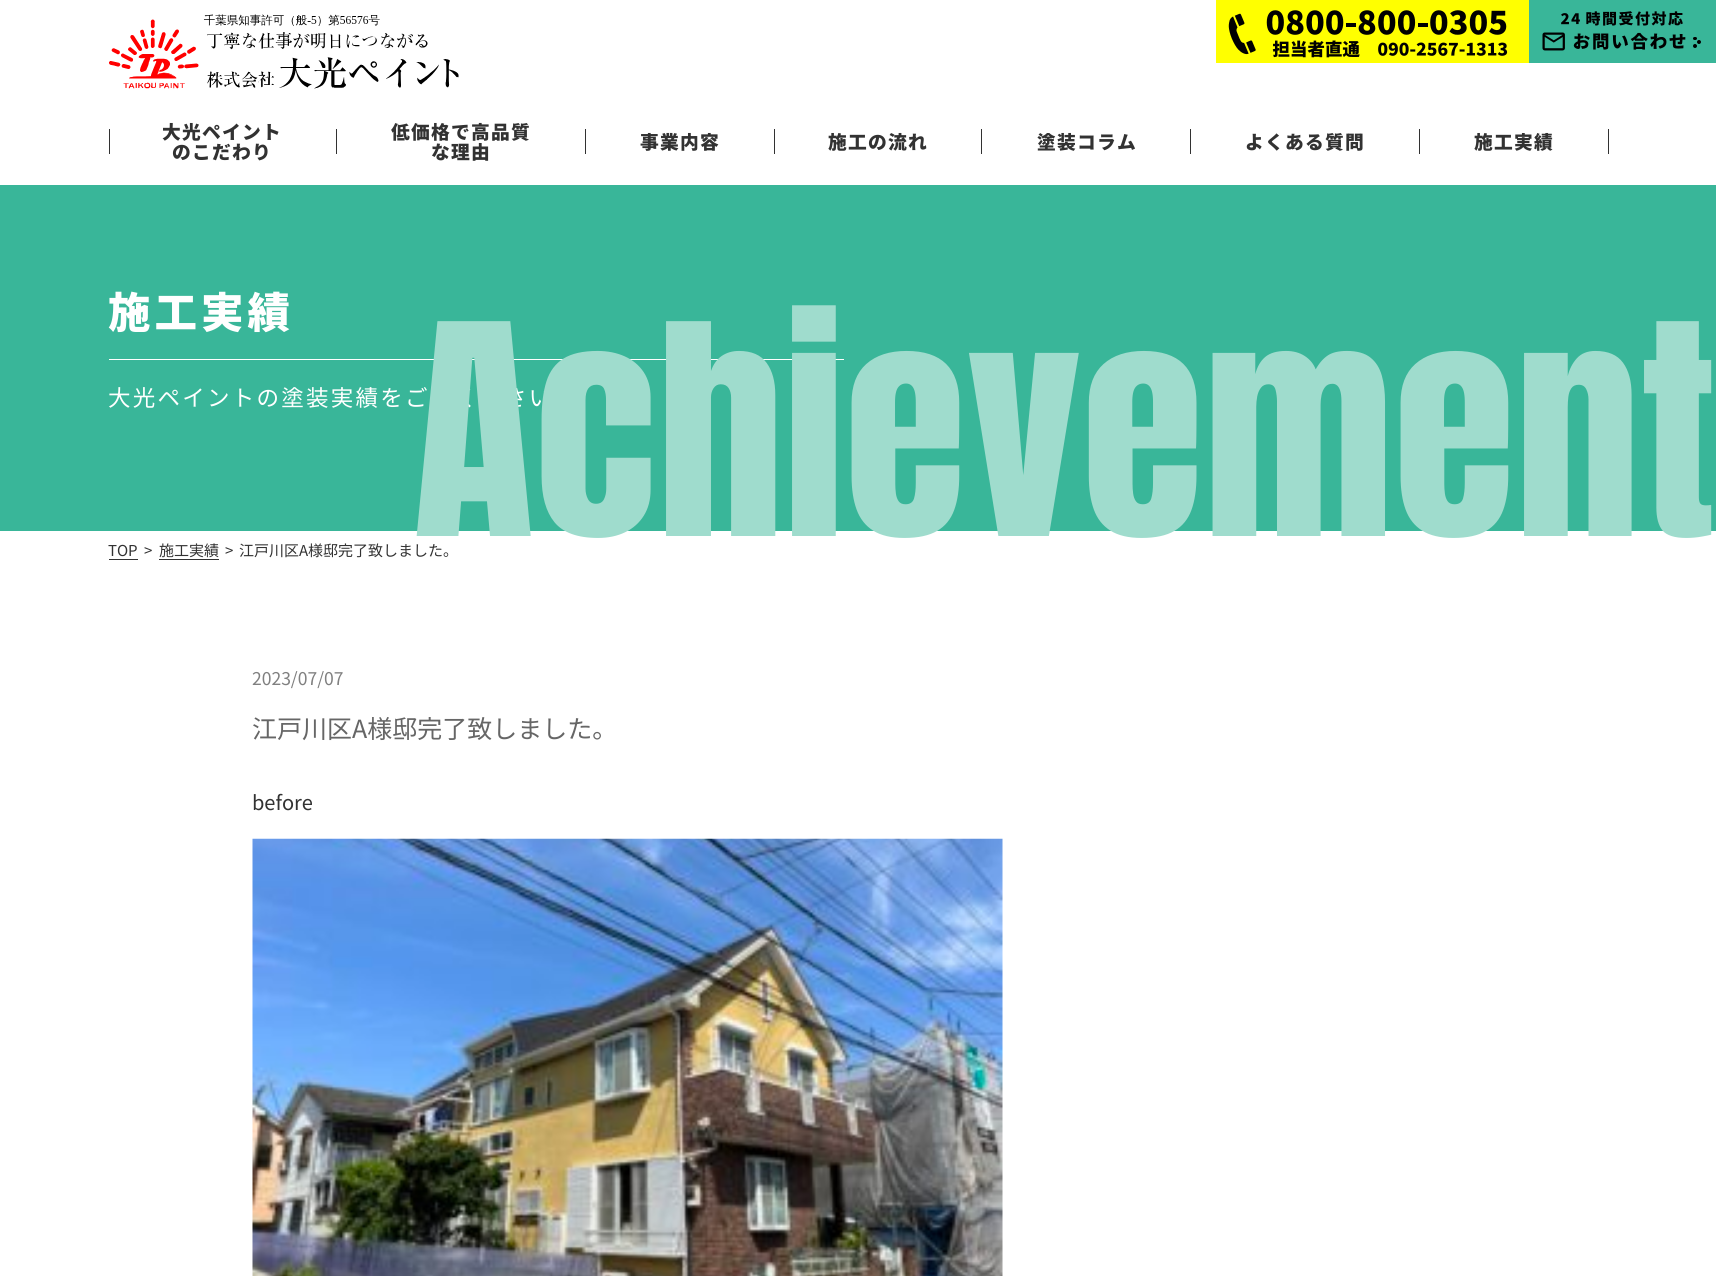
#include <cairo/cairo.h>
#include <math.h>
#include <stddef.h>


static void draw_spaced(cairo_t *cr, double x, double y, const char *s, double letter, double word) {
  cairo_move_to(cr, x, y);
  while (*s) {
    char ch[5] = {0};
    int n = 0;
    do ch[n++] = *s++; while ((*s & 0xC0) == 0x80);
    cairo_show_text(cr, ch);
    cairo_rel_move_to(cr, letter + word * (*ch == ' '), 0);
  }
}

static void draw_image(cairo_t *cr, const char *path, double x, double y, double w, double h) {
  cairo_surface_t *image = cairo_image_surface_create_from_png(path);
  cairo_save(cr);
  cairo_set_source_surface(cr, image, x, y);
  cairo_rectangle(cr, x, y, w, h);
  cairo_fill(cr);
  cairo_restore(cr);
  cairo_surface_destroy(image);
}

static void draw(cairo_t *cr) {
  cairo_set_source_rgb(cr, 1, 1, 1);
  cairo_paint(cr);
  draw_image(cr, "images/1.png", 109, 14, 350, 75);
  draw_image(cr, "images/2.png", 1216, 0, 313, 63);
  draw_image(cr, "images/3.png", 1529, 0, 187, 63);
  cairo_set_source_rgb(cr, 50 / 255.0, 50 / 255.0, 50 / 255.0);
  cairo_rectangle(cr, 109, 129, 1, 25);
  cairo_fill(cr);
  cairo_rectangle(cr, 336, 129, 1, 25);
  cairo_fill(cr);
  cairo_rectangle(cr, 585, 129, 1, 25);
  cairo_fill(cr);
  cairo_rectangle(cr, 774, 129, 1, 25);
  cairo_fill(cr);
  cairo_rectangle(cr, 981, 129, 1, 25);
  cairo_fill(cr);
  cairo_rectangle(cr, 1190, 129, 1, 25);
  cairo_fill(cr);
  cairo_rectangle(cr, 1419, 129, 1, 25);
  cairo_fill(cr);
  cairo_rectangle(cr, 1608, 129, 1, 25);
  cairo_fill(cr);
  cairo_set_source_rgb(cr, 57 / 255.0, 182 / 255.0, 153 / 255.0);
  cairo_rectangle(cr, 0, 185, 1716, 346);
  cairo_fill(cr);
  cairo_set_source_rgb(cr, 1, 1, 1);
  cairo_rectangle(cr, 109, 359, 735, 1);
  cairo_fill(cr);
  cairo_set_source_rgb(cr, 50 / 255.0, 50 / 255.0, 50 / 255.0);
  cairo_rectangle(cr, 109, 559, 29, 1);
  cairo_fill(cr);
  cairo_rectangle(cr, 159, 559, 60, 1);
  cairo_fill(cr);
  draw_image(cr, "images/4.png", 252, 838, 751, 438);
  cairo_select_font_face(cr, "Noto Sans JP Black", CAIRO_FONT_SLANT_NORMAL, CAIRO_FONT_WEIGHT_NORMAL);
  cairo_set_font_size(cr, 18.75);
  draw_spaced(cr, 162, 139, "大光ペイント", 1.25, 0);
  draw_spaced(cr, 172, 159, "のこだわり", 1.25, 0);
  draw_spaced(cr, 391, 139, "低価格で高品質", 1.25, 0);
  draw_spaced(cr, 431, 159, "な理由", 1.25, 0);
  draw_spaced(cr, 640, 149, "事業内容", 1.25, 0);
  draw_spaced(cr, 828, 149, "施工の流れ", 1.25, 0);
  draw_spaced(cr, 1037, 149, "塗装コラム", 1.25, 0);
  draw_spaced(cr, 1245, 149, "よくある質問", 1.25, 0);
  draw_spaced(cr, 1474, 149, "施工実績", 1.25, 0);
  cairo_set_font_size(cr, 42.5);
  cairo_set_source_rgb(cr, 1, 1, 1);
  draw_spaced(cr, 108, 328, "施工実績", 4, 0);
  cairo_select_font_face(cr, "Noto Sans JP", CAIRO_FONT_SLANT_NORMAL, CAIRO_FONT_WEIGHT_NORMAL);
  cairo_set_font_size(cr, 22.5);
  draw_spaced(cr, 108, 406, "大光ペイントの塗装実績をご覧ください", 2.25, 0);
  cairo_select_font_face(cr, "Anton", CAIRO_FONT_SLANT_NORMAL, CAIRO_FONT_WEIGHT_NORMAL);
  cairo_set_font_size(cr, 250);
  cairo_set_source_rgb(cr, 159 / 255.0, 220 / 255.0, 205 / 255.0);
  cairo_move_to(cr, 413, 536);
  cairo_show_text(cr, "Achievement");
  cairo_select_font_face(cr, "Noto Sans JP", CAIRO_FONT_SLANT_NORMAL, CAIRO_FONT_WEIGHT_NORMAL);
  cairo_set_font_size(cr, 15);
  cairo_set_source_rgb(cr, 50 / 255.0, 50 / 255.0, 50 / 255.0);
  cairo_move_to(cr, 108, 556);
  cairo_show_text(cr, "TOP");
  cairo_move_to(cr, 144, 556);
  cairo_show_text(cr, ">");
  cairo_move_to(cr, 159, 556);
  cairo_show_text(cr, "施工実績");
  cairo_move_to(cr, 225, 556);
  cairo_show_text(cr, ">");
  cairo_move_to(cr, 239, 556);
  cairo_show_text(cr, "江戸川区A様邸完了致しました。");
  cairo_set_font_size(cr, 17.5);
  cairo_set_source_rgb(cr, 128 / 255.0, 128 / 255.0, 128 / 255.0);
  cairo_move_to(cr, 252, 685);
  cairo_show_text(cr, "2023/07/07");
  cairo_set_font_size(cr, 25);
  cairo_set_source_rgb(cr, 102 / 255.0, 102 / 255.0, 102 / 255.0);
  cairo_move_to(cr, 252, 738);
  cairo_show_text(cr, "江戸川区A様邸完了致しました。");
  cairo_set_font_size(cr, 20);
  cairo_set_source_rgb(cr, 50 / 255.0, 50 / 255.0, 50 / 255.0);
  cairo_move_to(cr, 252, 810);
  cairo_show_text(cr, "before");
}

int main(void) {
  cairo_surface_t *surface = cairo_image_surface_create(CAIRO_FORMAT_RGB24, 1716, 1276);
  cairo_t *cr = cairo_create(surface);
  cairo_font_options_t *options = cairo_font_options_create();
  cairo_font_options_set_hint_metrics(options, CAIRO_HINT_METRICS_OFF);
  cairo_font_options_set_hint_style(options, CAIRO_HINT_STYLE_NONE);
  cairo_set_font_options(cr, options);
  cairo_set_miter_limit(cr, 4);
  draw(cr);
  cairo_surface_write_to_png(surface, "out.png");
  cairo_font_options_destroy(options);
  cairo_destroy(cr);
  cairo_surface_destroy(surface);
  return 0;
}
